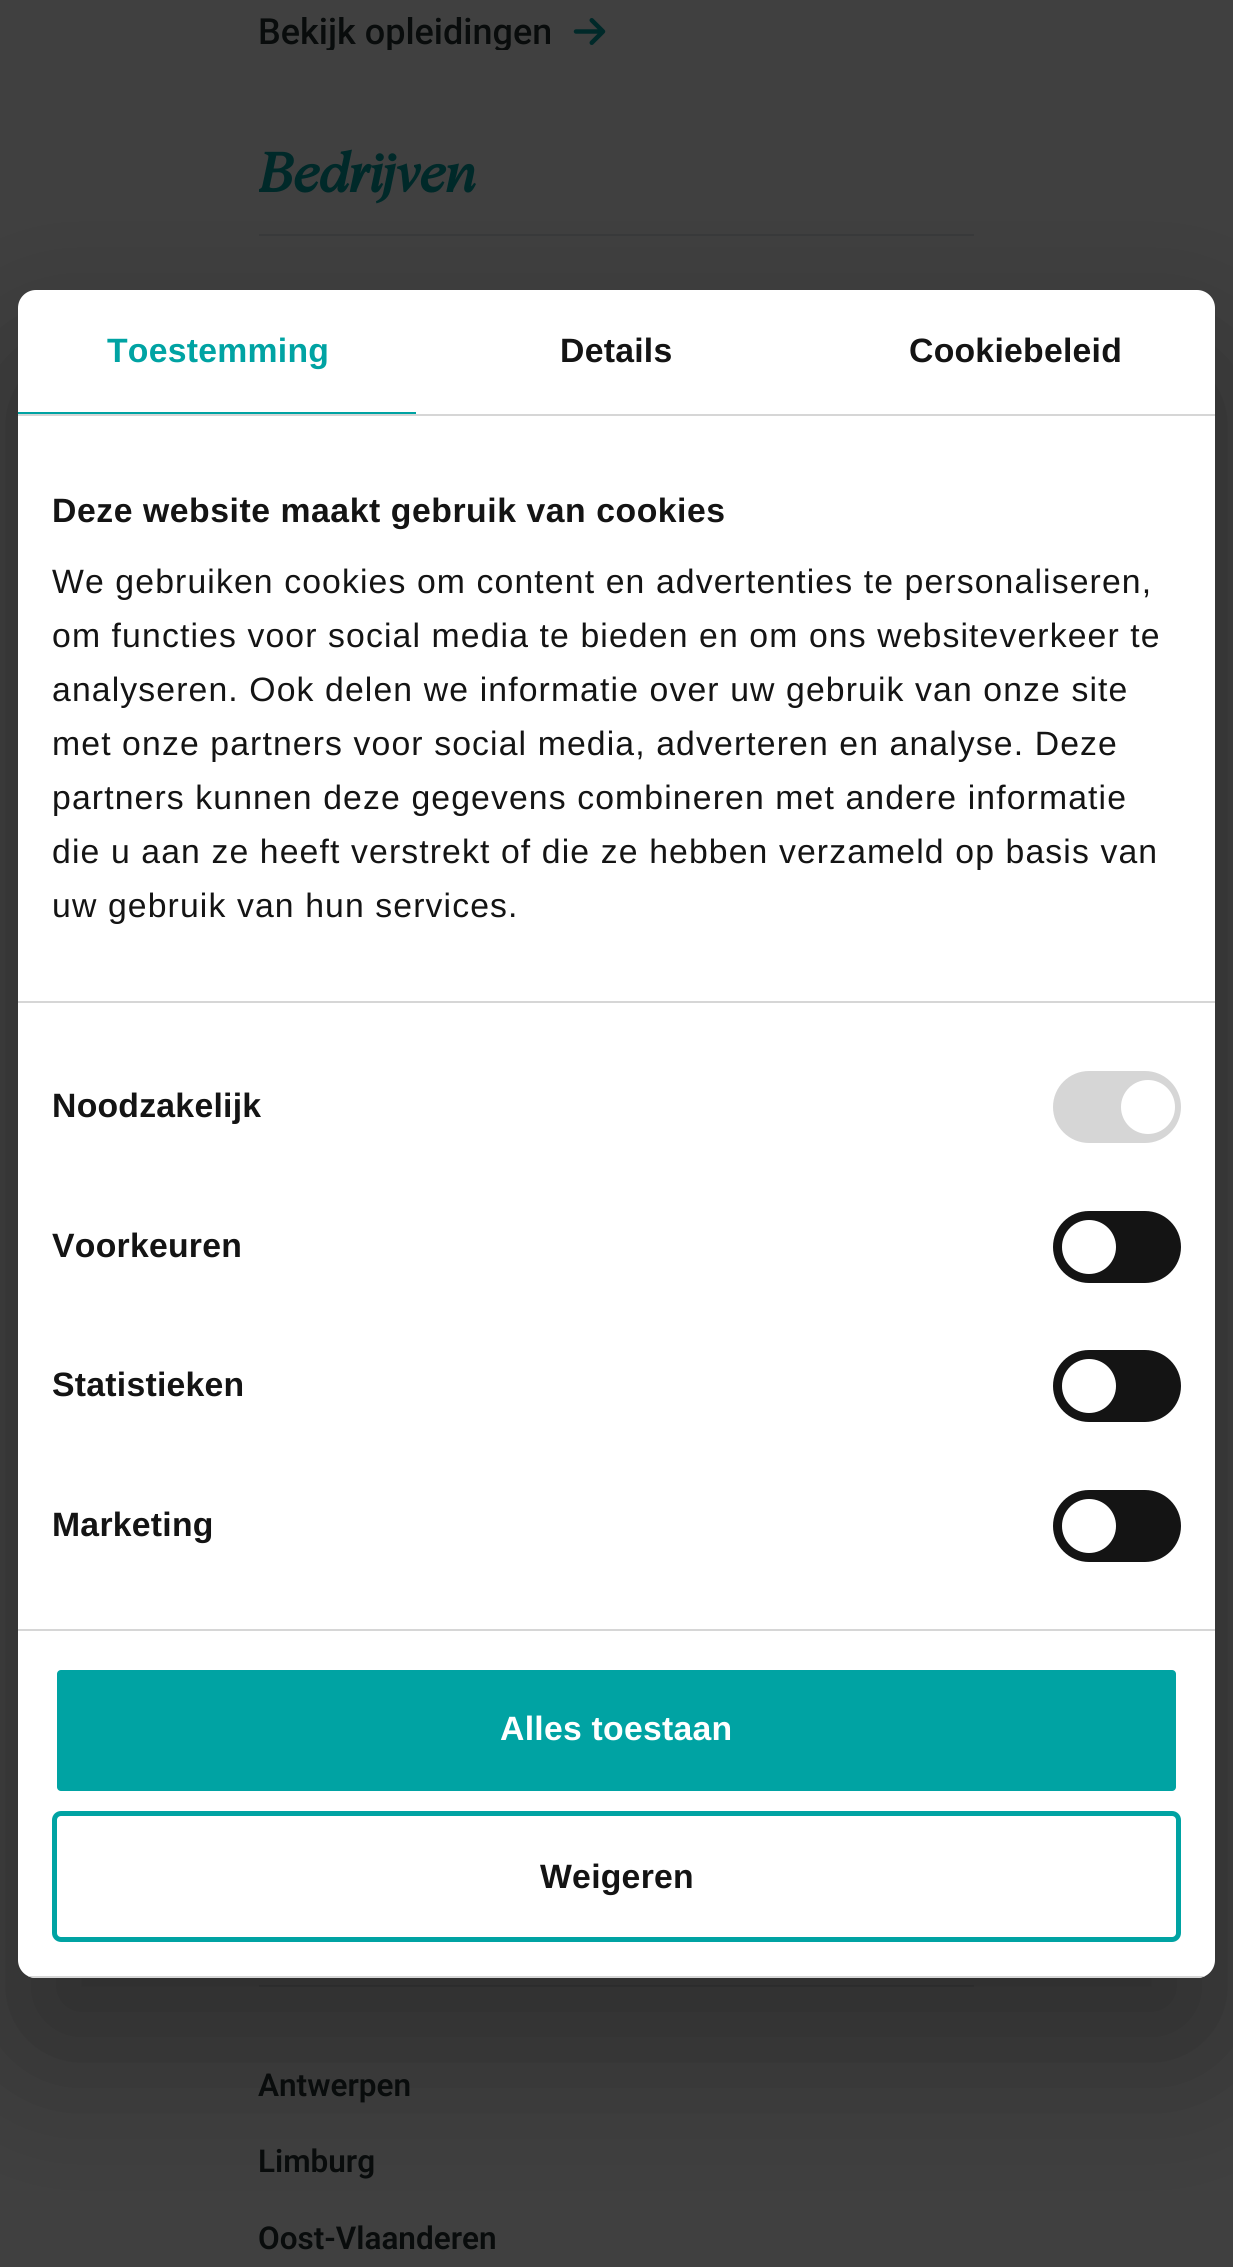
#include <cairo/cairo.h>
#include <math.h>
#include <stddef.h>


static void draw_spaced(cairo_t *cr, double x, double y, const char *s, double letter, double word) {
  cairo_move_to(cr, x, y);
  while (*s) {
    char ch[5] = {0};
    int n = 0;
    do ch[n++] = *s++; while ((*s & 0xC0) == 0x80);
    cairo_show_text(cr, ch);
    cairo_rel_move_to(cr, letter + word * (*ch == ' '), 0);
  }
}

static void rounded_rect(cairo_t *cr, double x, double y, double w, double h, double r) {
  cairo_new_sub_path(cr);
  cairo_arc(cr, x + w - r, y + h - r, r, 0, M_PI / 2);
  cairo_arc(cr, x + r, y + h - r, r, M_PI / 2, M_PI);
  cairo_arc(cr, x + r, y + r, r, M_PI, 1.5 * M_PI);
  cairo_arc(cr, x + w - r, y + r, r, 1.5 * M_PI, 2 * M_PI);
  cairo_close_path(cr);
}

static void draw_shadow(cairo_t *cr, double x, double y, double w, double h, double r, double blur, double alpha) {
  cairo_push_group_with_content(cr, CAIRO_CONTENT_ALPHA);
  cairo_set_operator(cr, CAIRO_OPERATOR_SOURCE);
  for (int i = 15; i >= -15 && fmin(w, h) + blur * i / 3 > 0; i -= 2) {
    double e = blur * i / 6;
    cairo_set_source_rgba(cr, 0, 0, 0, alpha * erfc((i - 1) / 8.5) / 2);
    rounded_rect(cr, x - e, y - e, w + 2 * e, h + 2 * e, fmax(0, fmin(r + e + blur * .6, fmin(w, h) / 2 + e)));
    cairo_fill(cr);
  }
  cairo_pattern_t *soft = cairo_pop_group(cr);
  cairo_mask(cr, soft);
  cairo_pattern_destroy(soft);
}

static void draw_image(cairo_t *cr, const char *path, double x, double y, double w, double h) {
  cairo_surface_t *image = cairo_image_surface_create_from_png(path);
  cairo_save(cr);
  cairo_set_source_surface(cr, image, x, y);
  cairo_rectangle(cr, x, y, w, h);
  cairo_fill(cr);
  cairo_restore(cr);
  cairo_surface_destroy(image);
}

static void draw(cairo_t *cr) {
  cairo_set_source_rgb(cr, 64 / 255.0, 64 / 255.0, 64 / 255.0);
  cairo_paint(cr);
  draw_image(cr, "images/1.png", 573, 18, 33, 27);
  cairo_set_source_rgb(cr, 57 / 255.0, 58 / 255.0, 59 / 255.0);
  cairo_rectangle(cr, 259, 234, 715, 2);
  cairo_fill(cr);
  cairo_rectangle(cr, 259, 1985, 715, 2);
  cairo_fill(cr);
  cairo_set_source_rgb(cr, 0, 0, 0);
  draw_shadow(cr, 18, 362, 1197, 1688, 18, 76.5, 0.3);
  cairo_set_source_rgb(cr, 1, 1, 1);
  rounded_rect(cr, 18, 290, 1197, 1688, 18);
  cairo_fill(cr);
  cairo_set_source_rgb(cr, 214 / 255.0, 214 / 255.0, 214 / 255.0);
  cairo_rectangle(cr, 18, 414, 1197, 2);
  cairo_fill(cr);
  cairo_set_source_rgb(cr, 0, 163 / 255.0, 163 / 255.0);
  cairo_rectangle(cr, 18, 412, 398, 2);
  cairo_fill(cr);
  cairo_set_source_rgb(cr, 214 / 255.0, 214 / 255.0, 214 / 255.0);
  cairo_rectangle(cr, 18, 1001, 1197, 2);
  cairo_fill(cr);
  cairo_rectangle(cr, 18, 1629, 1197, 2);
  cairo_fill(cr);
  rounded_rect(cr, 1053, 1071, 128, 72, 36);
  cairo_fill(cr);
  cairo_set_source_rgb(cr, 1, 1, 1);
  cairo_arc(cr, 1148, 1107, 27, 0, 2 * M_PI);
  cairo_fill(cr);
  cairo_set_source_rgb(cr, 20 / 255.0, 20 / 255.0, 20 / 255.0);
  rounded_rect(cr, 1053, 1211, 128, 72, 36);
  cairo_fill(cr);
  cairo_set_source_rgb(cr, 1, 1, 1);
  cairo_arc(cr, 1089, 1247, 27, 0, 2 * M_PI);
  cairo_fill(cr);
  cairo_set_source_rgb(cr, 20 / 255.0, 20 / 255.0, 20 / 255.0);
  rounded_rect(cr, 1053, 1350, 128, 72, 36);
  cairo_fill(cr);
  cairo_set_source_rgb(cr, 1, 1, 1);
  cairo_arc(cr, 1089, 1386, 27, 0, 2 * M_PI);
  cairo_fill(cr);
  cairo_set_source_rgb(cr, 20 / 255.0, 20 / 255.0, 20 / 255.0);
  rounded_rect(cr, 1053, 1490, 128, 72, 36);
  cairo_fill(cr);
  cairo_set_source_rgb(cr, 1, 1, 1);
  cairo_arc(cr, 1089, 1526, 27, 0, 2 * M_PI);
  cairo_fill(cr);
  cairo_save(cr);
  rounded_rect(cr, 18, 290, 1197, 1688, 18);
  cairo_clip(cr);
  cairo_set_source_rgb(cr, 214 / 255.0, 214 / 255.0, 214 / 255.0);
  cairo_rectangle(cr, 28, 1976, 1177, 2);
  cairo_fill(cr);
  cairo_restore(cr);
  cairo_set_source_rgb(cr, 0, 163 / 255.0, 163 / 255.0);
  rounded_rect(cr, 54.5, 1667.5, 1124, 126, 6.5);
  cairo_fill_preserve(cr);
  cairo_set_source_rgb(cr, 1, 1, 1);
  cairo_set_line_width(cr, 5);
  cairo_stroke(cr);
  rounded_rect(cr, 54.5, 1813.5, 1124, 126, 6.5);
  cairo_set_source_rgb(cr, 0, 163 / 255.0, 163 / 255.0);
  cairo_stroke(cr);
  cairo_save(cr);
  cairo_rectangle(cr, 259, 0, 715, 50);
  cairo_clip(cr);
  cairo_select_font_face(cr, "Roboto Medium", CAIRO_FONT_SLANT_NORMAL, CAIRO_FONT_WEIGHT_NORMAL);
  cairo_set_font_size(cr, 36);
  cairo_set_source_rgb(cr, 9 / 255.0, 12 / 255.0, 12 / 255.0);
  cairo_move_to(cr, 258, 44);
  cairo_show_text(cr, "Bekijk opleidingen");
  cairo_restore(cr);
  cairo_save(cr);
  cairo_rectangle(cr, 259, 140, 715, 555);
  cairo_clip(cr);
  cairo_select_font_face(cr, "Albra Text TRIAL", CAIRO_FONT_SLANT_ITALIC, CAIRO_FONT_WEIGHT_BOLD);
  cairo_set_font_size(cr, 54);
  cairo_set_source_rgb(cr, 0, 41 / 255.0, 41 / 255.0);
  cairo_move_to(cr, 258, 192);
  cairo_show_text(cr, "Bedrijven");
  cairo_restore(cr);
  cairo_select_font_face(cr, "Roboto SemiBold", CAIRO_FONT_SLANT_NORMAL, CAIRO_FONT_WEIGHT_NORMAL);
  cairo_set_font_size(cr, 31.5);
  cairo_set_source_rgb(cr, 9 / 255.0, 12 / 255.0, 12 / 255.0);
  cairo_move_to(cr, 258, 2096);
  cairo_show_text(cr, "Antwerpen");
  cairo_move_to(cr, 258, 2172);
  cairo_show_text(cr, "Limburg");
  cairo_move_to(cr, 258, 2249);
  cairo_show_text(cr, "Oost-Vlaanderen");
  cairo_select_font_face(cr, "Liberation Sans", CAIRO_FONT_SLANT_NORMAL, CAIRO_FONT_WEIGHT_BOLD);
  cairo_set_font_size(cr, 33.75);
  cairo_set_source_rgb(cr, 0, 163 / 255.0, 163 / 255.0);
  draw_spaced(cr, 107, 362, "Toestemming", 0.25, 0);
  cairo_set_source_rgb(cr, 20 / 255.0, 20 / 255.0, 20 / 255.0);
  draw_spaced(cr, 560, 362, "Details", 0.25, 0);
  draw_spaced(cr, 909, 362, "Cookiebeleid", 0.25, 0);
  draw_spaced(cr, 52, 522, "Deze website maakt gebruik van cookies", 0.55, 0);
  cairo_select_font_face(cr, "Liberation Sans", CAIRO_FONT_SLANT_NORMAL, CAIRO_FONT_WEIGHT_NORMAL);
  draw_spaced(cr, 52, 593, "We gebruiken cookies om content en advertenties te personaliseren,", 1.12, 0);
  draw_spaced(cr, 52, 647, "om functies voor social media te bieden en om ons websiteverkeer te", 1.12, 0);
  draw_spaced(cr, 52, 701, "analyseren. Ook delen we informatie over uw gebruik van onze site", 1.12, 0);
  draw_spaced(cr, 52, 755, "met onze partners voor social media, adverteren en analyse. Deze", 1.12, 0);
  draw_spaced(cr, 52, 809, "partners kunnen deze gegevens combineren met andere informatie", 1.12, 0);
  draw_spaced(cr, 52, 863, "die u aan ze heeft verstrekt of die ze hebben verzameld op basis van", 1.12, 0);
  draw_spaced(cr, 52, 917, "uw gebruik van hun services.", 1.12, 0);
  cairo_select_font_face(cr, "Liberation Sans", CAIRO_FONT_SLANT_NORMAL, CAIRO_FONT_WEIGHT_BOLD);
  draw_spaced(cr, 52, 1117, "Noodzakelijk", 0.25, 0);
  draw_spaced(cr, 52, 1257, "Voorkeuren", 0.25, 0);
  draw_spaced(cr, 52, 1396, "Statistieken", 0.25, 0);
  draw_spaced(cr, 52, 1536, "Marketing", 0.25, 0);
  cairo_set_source_rgb(cr, 1, 1, 1);
  draw_spaced(cr, 500, 1740, "Alles toestaan", 0.25, 0);
  cairo_set_source_rgb(cr, 20 / 255.0, 20 / 255.0, 20 / 255.0);
  draw_spaced(cr, 540, 1888, "Weigeren", 0.25, 0);
}

int main(void) {
  cairo_surface_t *surface = cairo_image_surface_create(CAIRO_FORMAT_RGB24, 1233, 2267);
  cairo_t *cr = cairo_create(surface);
  cairo_font_options_t *options = cairo_font_options_create();
  cairo_font_options_set_hint_metrics(options, CAIRO_HINT_METRICS_OFF);
  cairo_font_options_set_hint_style(options, CAIRO_HINT_STYLE_NONE);
  cairo_set_font_options(cr, options);
  cairo_set_miter_limit(cr, 4);
  draw(cr);
  cairo_surface_write_to_png(surface, "out.png");
  cairo_font_options_destroy(options);
  cairo_destroy(cr);
  cairo_surface_destroy(surface);
  return 0;
}
